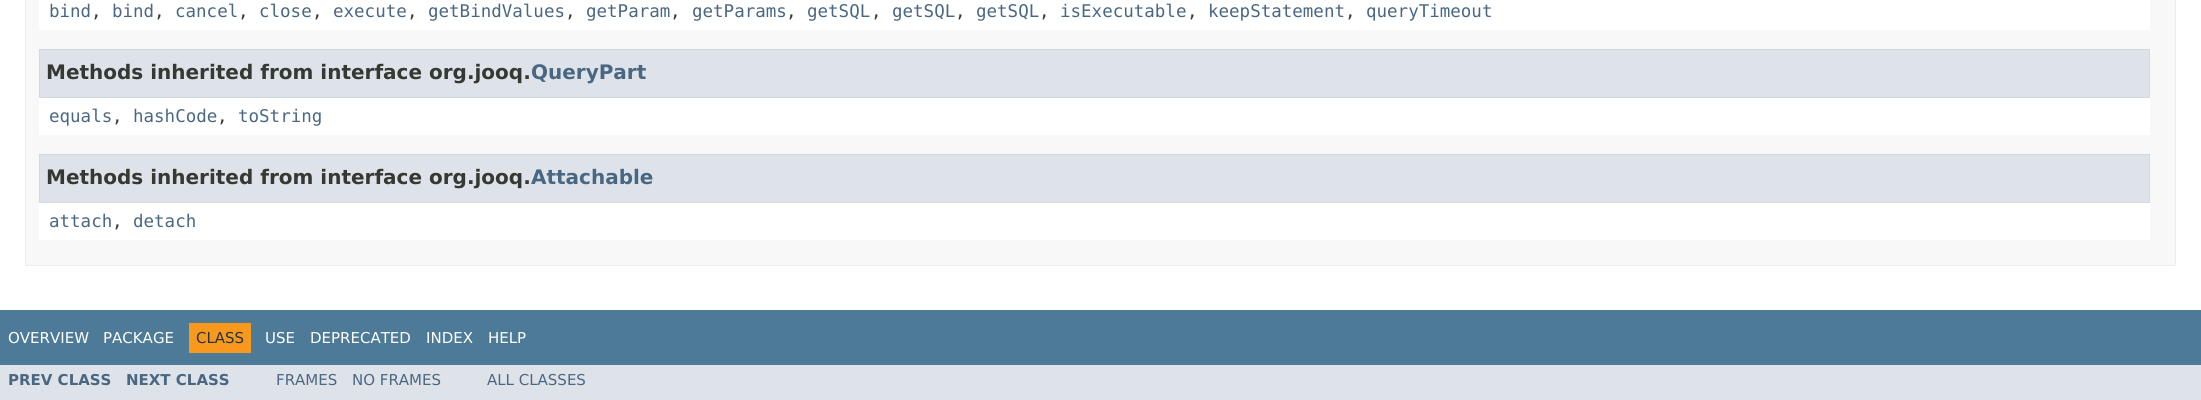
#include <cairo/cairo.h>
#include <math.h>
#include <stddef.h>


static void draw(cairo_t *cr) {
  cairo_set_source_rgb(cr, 1, 1, 1);
  cairo_paint(cr);
  cairo_set_source_rgb(cr, 248 / 255.0, 248 / 255.0, 248 / 255.0);
  cairo_rectangle(cr, 25.5, -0.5, 2150, 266);
  cairo_fill_preserve(cr);
  cairo_set_source_rgb(cr, 237 / 255.0, 237 / 255.0, 237 / 255.0);
  cairo_set_line_width(cr, 1);
  cairo_stroke(cr);
  cairo_set_source_rgb(cr, 1, 1, 1);
  cairo_rectangle(cr, 39, 0, 2111, 30);
  cairo_fill(cr);
  cairo_rectangle(cr, 39, 98, 2111, 37);
  cairo_fill(cr);
  cairo_set_source_rgb(cr, 222 / 255.0, 227 / 255.0, 233 / 255.0);
  cairo_rectangle(cr, 39.5, 49.5, 2110, 48);
  cairo_fill_preserve(cr);
  cairo_set_source_rgb(cr, 208 / 255.0, 217 / 255.0, 224 / 255.0);
  cairo_stroke(cr);
  cairo_set_source_rgb(cr, 1, 1, 1);
  cairo_rectangle(cr, 39, 203, 2111, 37);
  cairo_fill(cr);
  cairo_set_source_rgb(cr, 222 / 255.0, 227 / 255.0, 233 / 255.0);
  cairo_rectangle(cr, 39.5, 154.5, 2110, 48);
  cairo_fill_preserve(cr);
  cairo_set_source_rgb(cr, 208 / 255.0, 217 / 255.0, 224 / 255.0);
  cairo_stroke(cr);
  cairo_set_source_rgb(cr, 77 / 255.0, 122 / 255.0, 151 / 255.0);
  cairo_rectangle(cr, 0, 310, 2201, 55);
  cairo_fill(cr);
  cairo_set_source_rgb(cr, 248 / 255.0, 152 / 255.0, 29 / 255.0);
  cairo_rectangle(cr, 189, 323, 62, 30);
  cairo_fill(cr);
  cairo_set_source_rgb(cr, 222 / 255.0, 227 / 255.0, 233 / 255.0);
  cairo_rectangle(cr, 0, 365, 2201, 35);
  cairo_fill(cr);
  cairo_select_font_face(cr, "DejaVu Sans Mono", CAIRO_FONT_SLANT_NORMAL, CAIRO_FONT_WEIGHT_NORMAL);
  cairo_set_font_size(cr, 17.5);
  cairo_set_source_rgb(cr, 74 / 255.0, 103 / 255.0, 130 / 255.0);
  cairo_move_to(cr, 49, 17);
  cairo_show_text(cr, "bind");
  cairo_set_source_rgb(cr, 53 / 255.0, 56 / 255.0, 51 / 255.0);
  cairo_move_to(cr, 91, 17);
  cairo_show_text(cr, ",");
  cairo_set_source_rgb(cr, 74 / 255.0, 103 / 255.0, 130 / 255.0);
  cairo_move_to(cr, 112, 17);
  cairo_show_text(cr, "bind");
  cairo_set_source_rgb(cr, 53 / 255.0, 56 / 255.0, 51 / 255.0);
  cairo_move_to(cr, 154, 17);
  cairo_show_text(cr, ",");
  cairo_set_source_rgb(cr, 74 / 255.0, 103 / 255.0, 130 / 255.0);
  cairo_move_to(cr, 175, 17);
  cairo_show_text(cr, "cancel");
  cairo_set_source_rgb(cr, 53 / 255.0, 56 / 255.0, 51 / 255.0);
  cairo_move_to(cr, 238, 17);
  cairo_show_text(cr, ",");
  cairo_set_source_rgb(cr, 74 / 255.0, 103 / 255.0, 130 / 255.0);
  cairo_move_to(cr, 259, 17);
  cairo_show_text(cr, "close");
  cairo_set_source_rgb(cr, 53 / 255.0, 56 / 255.0, 51 / 255.0);
  cairo_move_to(cr, 312, 17);
  cairo_show_text(cr, ",");
  cairo_set_source_rgb(cr, 74 / 255.0, 103 / 255.0, 130 / 255.0);
  cairo_move_to(cr, 333, 17);
  cairo_show_text(cr, "execute");
  cairo_set_source_rgb(cr, 53 / 255.0, 56 / 255.0, 51 / 255.0);
  cairo_move_to(cr, 407, 17);
  cairo_show_text(cr, ",");
  cairo_set_source_rgb(cr, 74 / 255.0, 103 / 255.0, 130 / 255.0);
  cairo_move_to(cr, 428, 17);
  cairo_show_text(cr, "getBindValues");
  cairo_set_source_rgb(cr, 53 / 255.0, 56 / 255.0, 51 / 255.0);
  cairo_move_to(cr, 565, 17);
  cairo_show_text(cr, ",");
  cairo_set_source_rgb(cr, 74 / 255.0, 103 / 255.0, 130 / 255.0);
  cairo_move_to(cr, 586, 17);
  cairo_show_text(cr, "getParam");
  cairo_set_source_rgb(cr, 53 / 255.0, 56 / 255.0, 51 / 255.0);
  cairo_move_to(cr, 670, 17);
  cairo_show_text(cr, ",");
  cairo_set_source_rgb(cr, 74 / 255.0, 103 / 255.0, 130 / 255.0);
  cairo_move_to(cr, 692, 17);
  cairo_show_text(cr, "getParams");
  cairo_set_source_rgb(cr, 53 / 255.0, 56 / 255.0, 51 / 255.0);
  cairo_move_to(cr, 786, 17);
  cairo_show_text(cr, ",");
  cairo_set_source_rgb(cr, 74 / 255.0, 103 / 255.0, 130 / 255.0);
  cairo_move_to(cr, 807, 17);
  cairo_show_text(cr, "getSQL");
  cairo_set_source_rgb(cr, 53 / 255.0, 56 / 255.0, 51 / 255.0);
  cairo_move_to(cr, 871, 17);
  cairo_show_text(cr, ",");
  cairo_set_source_rgb(cr, 74 / 255.0, 103 / 255.0, 130 / 255.0);
  cairo_move_to(cr, 892, 17);
  cairo_show_text(cr, "getSQL");
  cairo_set_source_rgb(cr, 53 / 255.0, 56 / 255.0, 51 / 255.0);
  cairo_move_to(cr, 955, 17);
  cairo_show_text(cr, ",");
  cairo_set_source_rgb(cr, 74 / 255.0, 103 / 255.0, 130 / 255.0);
  cairo_move_to(cr, 976, 17);
  cairo_show_text(cr, "getSQL");
  cairo_set_source_rgb(cr, 53 / 255.0, 56 / 255.0, 51 / 255.0);
  cairo_move_to(cr, 1039, 17);
  cairo_show_text(cr, ",");
  cairo_set_source_rgb(cr, 74 / 255.0, 103 / 255.0, 130 / 255.0);
  cairo_move_to(cr, 1060, 17);
  cairo_show_text(cr, "isExecutable");
  cairo_set_source_rgb(cr, 53 / 255.0, 56 / 255.0, 51 / 255.0);
  cairo_move_to(cr, 1187, 17);
  cairo_show_text(cr, ",");
  cairo_set_source_rgb(cr, 74 / 255.0, 103 / 255.0, 130 / 255.0);
  cairo_move_to(cr, 1208, 17);
  cairo_show_text(cr, "keepStatement");
  cairo_set_source_rgb(cr, 53 / 255.0, 56 / 255.0, 51 / 255.0);
  cairo_move_to(cr, 1345, 17);
  cairo_show_text(cr, ",");
  cairo_set_source_rgb(cr, 74 / 255.0, 103 / 255.0, 130 / 255.0);
  cairo_move_to(cr, 1366, 17);
  cairo_show_text(cr, "queryTimeout");
  cairo_select_font_face(cr, "DejaVu Sans", CAIRO_FONT_SLANT_NORMAL, CAIRO_FONT_WEIGHT_BOLD);
  cairo_set_font_size(cr, 20);
  cairo_set_source_rgb(cr, 53 / 255.0, 56 / 255.0, 51 / 255.0);
  cairo_move_to(cr, 46, 79);
  cairo_show_text(cr, "Methods inherited from interface org.jooq.");
  cairo_set_source_rgb(cr, 74 / 255.0, 103 / 255.0, 130 / 255.0);
  cairo_move_to(cr, 531, 79);
  cairo_show_text(cr, "QueryPart");
  cairo_select_font_face(cr, "DejaVu Sans Mono", CAIRO_FONT_SLANT_NORMAL, CAIRO_FONT_WEIGHT_NORMAL);
  cairo_set_font_size(cr, 17.5);
  cairo_move_to(cr, 49, 122);
  cairo_show_text(cr, "equals");
  cairo_set_source_rgb(cr, 53 / 255.0, 56 / 255.0, 51 / 255.0);
  cairo_move_to(cr, 112, 122);
  cairo_show_text(cr, ",");
  cairo_set_source_rgb(cr, 74 / 255.0, 103 / 255.0, 130 / 255.0);
  cairo_move_to(cr, 133, 122);
  cairo_show_text(cr, "hashCode");
  cairo_set_source_rgb(cr, 53 / 255.0, 56 / 255.0, 51 / 255.0);
  cairo_move_to(cr, 217, 122);
  cairo_show_text(cr, ",");
  cairo_set_source_rgb(cr, 74 / 255.0, 103 / 255.0, 130 / 255.0);
  cairo_move_to(cr, 238, 122);
  cairo_show_text(cr, "toString");
  cairo_select_font_face(cr, "DejaVu Sans", CAIRO_FONT_SLANT_NORMAL, CAIRO_FONT_WEIGHT_BOLD);
  cairo_set_font_size(cr, 20);
  cairo_set_source_rgb(cr, 53 / 255.0, 56 / 255.0, 51 / 255.0);
  cairo_move_to(cr, 46, 184);
  cairo_show_text(cr, "Methods inherited from interface org.jooq.");
  cairo_set_source_rgb(cr, 74 / 255.0, 103 / 255.0, 130 / 255.0);
  cairo_move_to(cr, 531, 184);
  cairo_show_text(cr, "Attachable");
  cairo_select_font_face(cr, "DejaVu Sans Mono", CAIRO_FONT_SLANT_NORMAL, CAIRO_FONT_WEIGHT_NORMAL);
  cairo_set_font_size(cr, 17.5);
  cairo_move_to(cr, 49, 227);
  cairo_show_text(cr, "attach");
  cairo_set_source_rgb(cr, 53 / 255.0, 56 / 255.0, 51 / 255.0);
  cairo_move_to(cr, 112, 227);
  cairo_show_text(cr, ",");
  cairo_set_source_rgb(cr, 74 / 255.0, 103 / 255.0, 130 / 255.0);
  cairo_move_to(cr, 133, 227);
  cairo_show_text(cr, "detach");
  cairo_select_font_face(cr, "DejaVu Sans", CAIRO_FONT_SLANT_NORMAL, CAIRO_FONT_WEIGHT_NORMAL);
  cairo_set_font_size(cr, 15);
  cairo_set_source_rgb(cr, 1, 1, 1);
  cairo_move_to(cr, 8, 343);
  cairo_show_text(cr, "OVERVIEW");
  cairo_move_to(cr, 103, 343);
  cairo_show_text(cr, "PACKAGE");
  cairo_set_source_rgb(cr, 37 / 255.0, 52 / 255.0, 65 / 255.0);
  cairo_move_to(cr, 196, 343);
  cairo_show_text(cr, "CLASS");
  cairo_set_source_rgb(cr, 1, 1, 1);
  cairo_move_to(cr, 265, 343);
  cairo_show_text(cr, "USE");
  cairo_move_to(cr, 310, 343);
  cairo_show_text(cr, "DEPRECATED");
  cairo_move_to(cr, 426, 343);
  cairo_show_text(cr, "INDEX");
  cairo_move_to(cr, 488, 343);
  cairo_show_text(cr, "HELP");
  cairo_select_font_face(cr, "DejaVu Sans", CAIRO_FONT_SLANT_NORMAL, CAIRO_FONT_WEIGHT_BOLD);
  cairo_set_source_rgb(cr, 74 / 255.0, 103 / 255.0, 130 / 255.0);
  cairo_move_to(cr, 8, 385);
  cairo_show_text(cr, "PREV CLASS");
  cairo_move_to(cr, 126, 385);
  cairo_show_text(cr, "NEXT CLASS");
  cairo_select_font_face(cr, "DejaVu Sans", CAIRO_FONT_SLANT_NORMAL, CAIRO_FONT_WEIGHT_NORMAL);
  cairo_move_to(cr, 276, 385);
  cairo_show_text(cr, "FRAMES");
  cairo_move_to(cr, 352, 385);
  cairo_show_text(cr, "NO FRAMES");
  cairo_move_to(cr, 487, 385);
  cairo_show_text(cr, "ALL CLASSES");
}

int main(void) {
  cairo_surface_t *surface = cairo_image_surface_create(CAIRO_FORMAT_RGB24, 2201, 400);
  cairo_t *cr = cairo_create(surface);
  cairo_font_options_t *options = cairo_font_options_create();
  cairo_font_options_set_hint_metrics(options, CAIRO_HINT_METRICS_OFF);
  cairo_font_options_set_hint_style(options, CAIRO_HINT_STYLE_NONE);
  cairo_set_font_options(cr, options);
  cairo_set_miter_limit(cr, 4);
  draw(cr);
  cairo_surface_write_to_png(surface, "out.png");
  cairo_font_options_destroy(options);
  cairo_destroy(cr);
  cairo_surface_destroy(surface);
  return 0;
}
